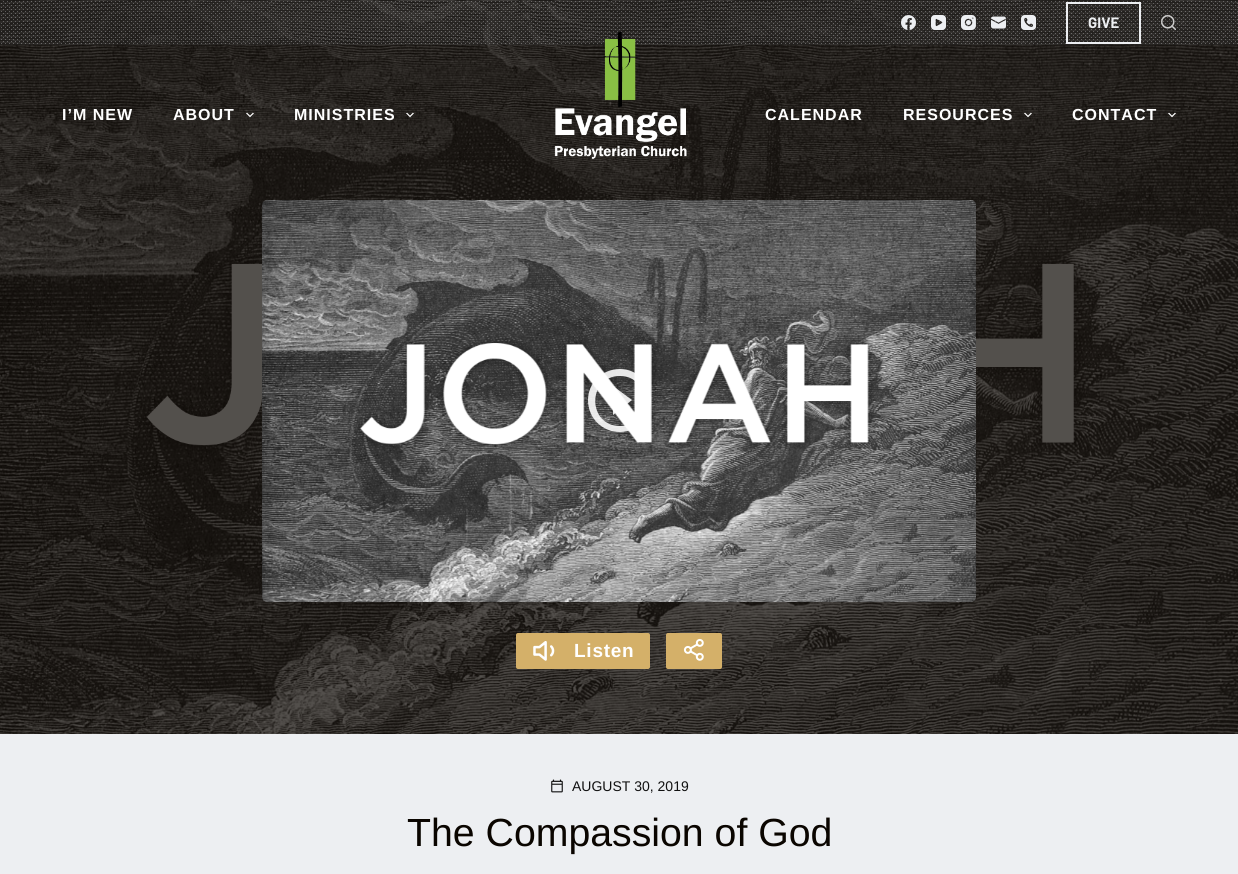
#include <cairo/cairo.h>
#include <math.h>
#include <stddef.h>


static void draw_spaced(cairo_t *cr, double x, double y, const char *s, double letter, double word) {
  cairo_move_to(cr, x, y);
  while (*s) {
    char ch[5] = {0};
    int n = 0;
    do ch[n++] = *s++; while ((*s & 0xC0) == 0x80);
    cairo_show_text(cr, ch);
    cairo_rel_move_to(cr, letter + word * (*ch == ' '), 0);
  }
}

static void rounded_rect(cairo_t *cr, double x, double y, double w, double h, double r) {
  cairo_new_sub_path(cr);
  cairo_arc(cr, x + w - r, y + h - r, r, 0, M_PI / 2);
  cairo_arc(cr, x + r, y + h - r, r, M_PI / 2, M_PI);
  cairo_arc(cr, x + r, y + r, r, M_PI, 1.5 * M_PI);
  cairo_arc(cr, x + w - r, y + r, r, 1.5 * M_PI, 2 * M_PI);
  cairo_close_path(cr);
}

static void draw_image(cairo_t *cr, const char *path, double x, double y, double w, double h) {
  cairo_surface_t *image = cairo_image_surface_create_from_png(path);
  cairo_save(cr);
  cairo_set_source_surface(cr, image, x, y);
  cairo_rectangle(cr, x, y, w, h);
  cairo_fill(cr);
  cairo_restore(cr);
  cairo_surface_destroy(image);
}

static void draw(cairo_t *cr) {
  cairo_set_source_rgb(cr, 237 / 255.0, 239 / 255.0, 242 / 255.0);
  cairo_paint(cr);
  draw_image(cr, "images/13.png", 0, 0, 1238, 734);
  cairo_set_source_rgba(cr, 61 / 255.0, 61 / 255.0, 61 / 255.0, 0.3);
  cairo_rectangle(cr, 0, 0, 1238, 45);
  cairo_fill(cr);
  draw_image(cr, "images/1.png", 1, 1, 1237, 43);
  draw_image(cr, "images/2.png", 901, 15, 15, 15);
  draw_image(cr, "images/3.png", 931, 15, 15, 15);
  draw_image(cr, "images/4.png", 961, 15, 15, 15);
  draw_image(cr, "images/5.png", 991, 16, 15, 13);
  draw_image(cr, "images/6.png", 1021, 15, 15, 15);
  cairo_rectangle(cr, 1067, 3, 73, 40);
  cairo_set_source_rgb(cr, 237 / 255.0, 239 / 255.0, 242 / 255.0);
  cairo_stroke(cr);
  draw_image(cr, "images/7.png", 1161, 15, 15, 15);
  draw_image(cr, "images/8.png", 246, 112, 8, 6);
  draw_image(cr, "images/9.png", 406, 112, 8, 6);
  draw_image(cr, "images/10.png", 554, 31, 133, 128);
  draw_image(cr, "images/11.png", 1024, 112, 8, 6);
  draw_image(cr, "images/12.png", 1168, 112, 8, 6);
  draw_image(cr, "images/14.png", 262, 200, 714, 402);
  cairo_set_source_rgba(cr, 1, 1, 1, 0.88);
  cairo_new_path(cr);
  cairo_move_to(cr, 613, 415);
  cairo_line_to(cr, 632, 400);
  cairo_line_to(cr, 613, 386);
  cairo_close_path(cr);
  cairo_move_to(cr, 620, 369);
  cairo_curve_to(cr, 602, 369, 588, 383, 588, 400);
  cairo_curve_to(cr, 588, 418, 602, 432, 620, 432);
  cairo_curve_to(cr, 637, 432, 651, 418, 651, 400);
  cairo_curve_to(cr, 651, 383, 637, 369, 620, 369);
  cairo_move_to(cr, 620, 426);
  cairo_curve_to(cr, 587, 426, 587, 376, 620, 376);
  cairo_curve_to(cr, 652, 376, 652, 426, 620, 426);
  cairo_fill(cr);
  cairo_set_source_rgb(cr, 212 / 255.0, 176 / 255.0, 105 / 255.0);
  rounded_rect(cr, 516, 633, 134, 36, 2);
  cairo_fill(cr);
  draw_image(cr, "images/15.png", 533, 641, 22, 20);
  rounded_rect(cr, 666, 633, 56, 36, 2);
  cairo_fill(cr);
  draw_image(cr, "images/16.png", 683, 638, 21, 23);
  draw_image(cr, "images/17.png", 551, 779, 12, 14);
  cairo_select_font_face(cr, "Barlow", CAIRO_FONT_SLANT_NORMAL, CAIRO_FONT_WEIGHT_BOLD);
  cairo_set_font_size(cr, 15);
  cairo_set_source_rgb(cr, 237 / 255.0, 239 / 255.0, 242 / 255.0);
  cairo_move_to(cr, 1088, 28);
  cairo_show_text(cr, "GIVE");
  cairo_select_font_face(cr, "Liberation Sans", CAIRO_FONT_SLANT_NORMAL, CAIRO_FONT_WEIGHT_BOLD);
  cairo_set_font_size(cr, 16);
  cairo_set_source_rgb(cr, 1, 1, 1);
  draw_spaced(cr, 62, 120, "I’M NEW", 1, 0);
  draw_spaced(cr, 173, 120, "ABOUT", 1, 0);
  draw_spaced(cr, 294, 120, "MINISTRIES", 1, 0);
  draw_spaced(cr, 765, 120, "CALENDAR", 1, 0);
  draw_spaced(cr, 903, 120, "RESOURCES", 1, 0);
  draw_spaced(cr, 1072, 120, "CONTACT", 1, 0);
  cairo_set_font_size(cr, 19);
  draw_spaced(cr, 574, 657, "Listen", 0.75, 0);
  cairo_select_font_face(cr, "Liberation Sans", CAIRO_FONT_SLANT_NORMAL, CAIRO_FONT_WEIGHT_NORMAL);
  cairo_set_font_size(cr, 14);
  cairo_set_source_rgb(cr, 17 / 255.0, 17 / 255.0, 17 / 255.0);
  cairo_move_to(cr, 572, 791);
  cairo_show_text(cr, "AUGUST 30, 2019");
  cairo_set_font_size(cr, 39.25);
  cairo_set_source_rgb(cr, 10 / 255.0, 5 / 255.0, 0);
  cairo_move_to(cr, 407, 846);
  cairo_show_text(cr, "The Compassion of God");
}

int main(void) {
  cairo_surface_t *surface = cairo_image_surface_create(CAIRO_FORMAT_RGB24, 1238, 874);
  cairo_t *cr = cairo_create(surface);
  cairo_font_options_t *options = cairo_font_options_create();
  cairo_font_options_set_hint_metrics(options, CAIRO_HINT_METRICS_OFF);
  cairo_font_options_set_hint_style(options, CAIRO_HINT_STYLE_NONE);
  cairo_set_font_options(cr, options);
  cairo_set_miter_limit(cr, 4);
  draw(cr);
  cairo_surface_write_to_png(surface, "out.png");
  cairo_font_options_destroy(options);
  cairo_destroy(cr);
  cairo_surface_destroy(surface);
  return 0;
}
